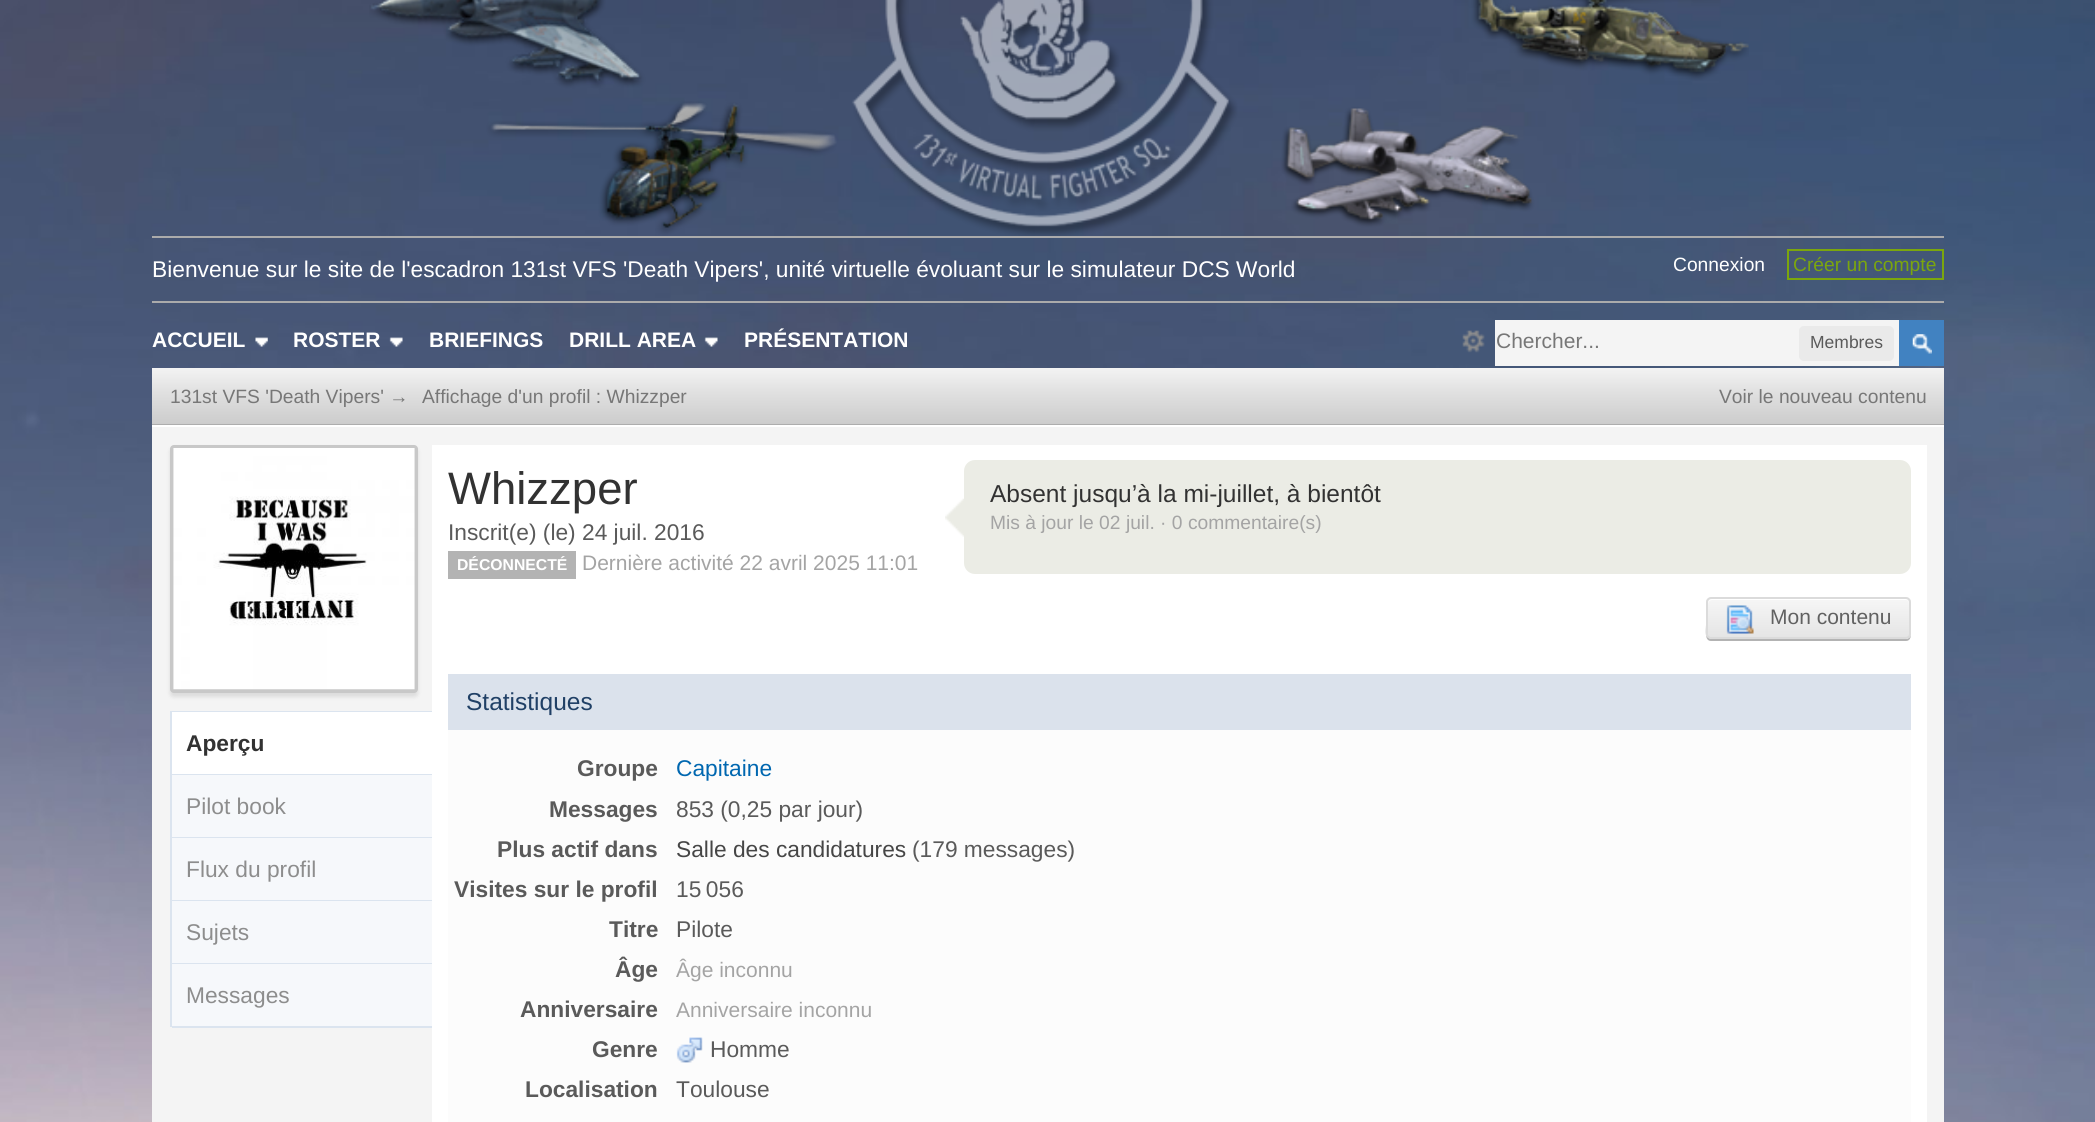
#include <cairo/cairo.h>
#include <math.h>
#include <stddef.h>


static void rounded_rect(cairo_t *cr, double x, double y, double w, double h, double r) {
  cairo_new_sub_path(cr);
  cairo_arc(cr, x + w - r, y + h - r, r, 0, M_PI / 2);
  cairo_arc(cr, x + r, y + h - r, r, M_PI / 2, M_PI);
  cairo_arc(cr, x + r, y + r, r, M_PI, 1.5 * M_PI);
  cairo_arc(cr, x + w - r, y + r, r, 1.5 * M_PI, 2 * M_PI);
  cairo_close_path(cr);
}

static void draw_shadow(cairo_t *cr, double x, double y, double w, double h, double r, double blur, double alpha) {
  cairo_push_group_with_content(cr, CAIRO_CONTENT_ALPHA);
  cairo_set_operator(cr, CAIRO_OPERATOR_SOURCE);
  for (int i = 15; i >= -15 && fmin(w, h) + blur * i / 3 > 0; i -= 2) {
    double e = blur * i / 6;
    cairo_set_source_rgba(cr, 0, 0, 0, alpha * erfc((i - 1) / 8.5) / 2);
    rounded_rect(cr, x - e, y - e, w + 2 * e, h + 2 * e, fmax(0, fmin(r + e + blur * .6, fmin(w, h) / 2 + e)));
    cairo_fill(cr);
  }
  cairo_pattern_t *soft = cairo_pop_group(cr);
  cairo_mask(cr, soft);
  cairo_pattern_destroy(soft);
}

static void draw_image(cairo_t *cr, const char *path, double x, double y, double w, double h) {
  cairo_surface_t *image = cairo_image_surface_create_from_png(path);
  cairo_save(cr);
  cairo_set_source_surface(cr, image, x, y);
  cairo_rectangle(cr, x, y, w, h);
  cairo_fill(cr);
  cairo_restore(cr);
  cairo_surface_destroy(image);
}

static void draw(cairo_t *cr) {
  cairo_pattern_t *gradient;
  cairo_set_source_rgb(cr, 1, 1, 1);
  cairo_paint(cr);
  draw_image(cr, "images/1.png", 0, 0, 2095, 1122);
  draw_image(cr, "images/2.png", 369, 0, 1380, 236);
  cairo_set_source_rgb(cr, 171 / 255.0, 171 / 255.0, 171 / 255.0);
  cairo_rectangle(cr, 152, 236, 1792, 2);
  cairo_fill(cr);
  cairo_rectangle(cr, 152, 301, 1792, 2);
  cairo_fill(cr);
  cairo_rectangle(cr, 1788, 250, 155, 29);
  cairo_set_source_rgb(cr, 123 / 255.0, 166 / 255.0, 13 / 255.0);
  cairo_stroke(cr);
  draw_image(cr, "images/3.png", 255, 337, 13, 10);
  draw_image(cr, "images/4.png", 389, 337, 14, 10);
  draw_image(cr, "images/5.png", 704, 337, 14, 10);
  draw_image(cr, "images/6.png", 1462, 330, 23, 23);
  cairo_set_source_rgb(cr, 244 / 255.0, 244 / 255.0, 244 / 255.0);
  cairo_rectangle(cr, 1495, 320, 404, 46);
  cairo_fill(cr);
  cairo_set_source_rgb(cr, 234 / 255.0, 234 / 255.0, 234 / 255.0);
  rounded_rect(cr, 1799, 326, 95, 35, 5);
  cairo_fill(cr);
  cairo_set_source_rgb(cr, 65 / 255.0, 130 / 255.0, 193 / 255.0);
  cairo_rectangle(cr, 1899, 320, 45, 46);
  cairo_fill(cr);
  draw_image(cr, "images/7.png", 1912, 334, 20, 20);
  gradient = cairo_pattern_create_linear(1048, 367, 1048, 424);
  cairo_pattern_add_color_stop_rgba(gradient, 0, 244 / 255.0, 244 / 255.0, 244 / 255.0, 1);
  cairo_pattern_add_color_stop_rgba(gradient, 0.4, 226 / 255.0, 226 / 255.0, 226 / 255.0, 1);
  cairo_pattern_add_color_stop_rgba(gradient, 1, 204 / 255.0, 204 / 255.0, 204 / 255.0, 1);
  cairo_set_source(cr, gradient);
  cairo_pattern_destroy(gradient);
  cairo_rectangle(cr, 152, 368, 1792, 56);
  cairo_fill(cr);
  cairo_set_source_rgb(cr, 173 / 255.0, 173 / 255.0, 173 / 255.0);
  cairo_rectangle(cr, 152, 424, 1792, 1);
  cairo_fill(cr);
  cairo_set_source_rgb(cr, 244 / 255.0, 244 / 255.0, 244 / 255.0);
  cairo_rectangle(cr, 152, 427, 1792, 695);
  cairo_fill(cr);
  cairo_set_source_rgb(cr, 1, 1, 1);
  cairo_rectangle(cr, 152, 425, 1792, 2);
  cairo_fill(cr);
  cairo_set_source_rgb(cr, 0, 0, 0);
  draw_shadow(cr, 170, 448, 248, 249, 4, 2, 0.1);
  cairo_set_source_rgb(cr, 200 / 255.0, 200 / 255.0, 200 / 255.0);
  rounded_rect(cr, 170, 445, 248, 248, 4);
  cairo_fill(cr);
  draw_image(cr, "images/8.png", 173, 448, 242, 242);
  cairo_set_source_rgb(cr, 219 / 255.0, 228 / 255.0, 239 / 255.0);
  cairo_rectangle(cr, 170, 711, 262, 1);
  cairo_fill(cr);
  cairo_rectangle(cr, 170, 711, 2, 316);
  cairo_fill(cr);
  cairo_rectangle(cr, 172, 774, 260, 1);
  cairo_fill(cr);
  cairo_set_source_rgb(cr, 1, 1, 1);
  cairo_rectangle(cr, 172, 712, 260, 62);
  cairo_fill(cr);
  cairo_set_source_rgb(cr, 246 / 255.0, 248 / 255.0, 251 / 255.0);
  cairo_rectangle(cr, 172, 775, 260, 62);
  cairo_fill(cr);
  cairo_set_source_rgb(cr, 219 / 255.0, 228 / 255.0, 239 / 255.0);
  cairo_rectangle(cr, 172, 837, 260, 1);
  cairo_fill(cr);
  cairo_set_source_rgb(cr, 246 / 255.0, 248 / 255.0, 251 / 255.0);
  cairo_rectangle(cr, 172, 838, 260, 62);
  cairo_fill(cr);
  cairo_set_source_rgb(cr, 219 / 255.0, 228 / 255.0, 239 / 255.0);
  cairo_rectangle(cr, 172, 900, 260, 1);
  cairo_fill(cr);
  cairo_set_source_rgb(cr, 246 / 255.0, 248 / 255.0, 251 / 255.0);
  cairo_rectangle(cr, 172, 901, 260, 62);
  cairo_fill(cr);
  cairo_set_source_rgb(cr, 219 / 255.0, 228 / 255.0, 239 / 255.0);
  cairo_rectangle(cr, 172, 963, 260, 1);
  cairo_fill(cr);
  cairo_set_source_rgb(cr, 246 / 255.0, 248 / 255.0, 251 / 255.0);
  cairo_rectangle(cr, 172, 964, 260, 62);
  cairo_fill(cr);
  cairo_set_source_rgb(cr, 219 / 255.0, 228 / 255.0, 239 / 255.0);
  cairo_rectangle(cr, 172, 1026, 260, 2);
  cairo_fill(cr);
  cairo_set_source_rgb(cr, 1, 1, 1);
  cairo_rectangle(cr, 432, 445, 1495, 677);
  cairo_fill(cr);
  cairo_set_source_rgb(cr, 179 / 255.0, 179 / 255.0, 179 / 255.0);
  cairo_rectangle(cr, 448, 551, 128, 28);
  cairo_fill(cr);
  draw_image(cr, "images/9.png", 945, 498, 19, 39);
  cairo_set_source_rgb(cr, 235 / 255.0, 236 / 255.0, 229 / 255.0);
  rounded_rect(cr, 964, 460, 947, 114, 11);
  cairo_fill(cr);
  cairo_set_source_rgb(cr, 179 / 255.0, 179 / 255.0, 179 / 255.0);
  cairo_new_path(cr);
  cairo_move_to(cr, 1706, 602);
  cairo_line_to(cr, 1706, 625);
  cairo_curve_to(cr, 1706, 629, 1704, 641, 1711, 641);
  cairo_line_to(cr, 1906, 641);
  cairo_curve_to(cr, 1910, 641, 1911, 637, 1911, 634);
  cairo_curve_to(cr, 1911, 636, 1909, 639, 1906, 639);
  cairo_line_to(cr, 1712, 639);
  cairo_curve_to(cr, 1709, 639, 1706, 636, 1706, 634);
  cairo_close_path(cr);
  cairo_fill(cr);
  cairo_save(cr);
  rounded_rect(cr, 1706, 597, 205, 42, 5);
  cairo_clip(cr);
  gradient = cairo_pattern_create_linear(1708, 599, 1708, 637);
  cairo_pattern_add_color_stop_rgba(gradient, 0, 246 / 255.0, 246 / 255.0, 246 / 255.0, 1);
  cairo_pattern_add_color_stop_rgba(gradient, 1, 229 / 255.0, 229 / 255.0, 229 / 255.0, 1);
  cairo_set_source(cr, gradient);
  cairo_pattern_destroy(gradient);
  cairo_rectangle(cr, 1706, 599, 205, 38);
  cairo_fill(cr);
  cairo_restore(cr);
  cairo_set_source_rgb(cr, 1, 1, 1);
  cairo_new_path(cr);
  cairo_move_to(cr, 1712, 600);
  cairo_line_to(cr, 1906, 600);
  cairo_curve_to(cr, 1908, 600, 1909, 602, 1909, 604);
  cairo_line_to(cr, 1909, 603);
  cairo_curve_to(cr, 1909, 601, 1907, 599, 1905, 599);
  cairo_line_to(cr, 1712, 599);
  cairo_curve_to(cr, 1710, 599, 1708, 601, 1708, 603);
  cairo_line_to(cr, 1708, 604);
  cairo_curve_to(cr, 1708, 602, 1710, 600, 1712, 600);
  cairo_close_path(cr);
  cairo_fill(cr);
  rounded_rect(cr, 1707, 598, 203, 40, 4);
  cairo_set_source_rgb(cr, 219 / 255.0, 219 / 255.0, 219 / 255.0);
  cairo_stroke(cr);
  draw_image(cr, "images/10.png", 1726, 605, 28, 29);
  cairo_set_source_rgb(cr, 252 / 255.0, 252 / 255.0, 252 / 255.0);
  cairo_rectangle(cr, 448, 730, 1463, 392);
  cairo_fill(cr);
  cairo_set_source_rgb(cr, 219 / 255.0, 226 / 255.0, 236 / 255.0);
  cairo_rectangle(cr, 448, 674, 1463, 56);
  cairo_fill(cr);
  draw_image(cr, "images/11.png", 676, 1037, 27, 26);
  cairo_select_font_face(cr, "Liberation Sans", CAIRO_FONT_SLANT_NORMAL, CAIRO_FONT_WEIGHT_NORMAL);
  cairo_set_font_size(cr, 22.75);
  cairo_set_source_rgb(cr, 1, 1, 1);
  cairo_move_to(cr, 152, 277);
  cairo_show_text(cr, "Bienvenue sur le site de l'escadron 131st VFS 'Death Vipers', unité virtuelle évoluant sur le simulateur DCS World");
  cairo_set_font_size(cr, 19.25);
  cairo_move_to(cr, 1673, 271);
  cairo_show_text(cr, "Connexion");
  cairo_set_source_rgb(cr, 123 / 255.0, 166 / 255.0, 13 / 255.0);
  cairo_move_to(cr, 1793, 271);
  cairo_show_text(cr, "Créer un compte");
  cairo_select_font_face(cr, "Liberation Sans", CAIRO_FONT_SLANT_NORMAL, CAIRO_FONT_WEIGHT_BOLD);
  cairo_set_font_size(cr, 21);
  cairo_set_source_rgb(cr, 1, 1, 1);
  cairo_move_to(cr, 152, 347);
  cairo_show_text(cr, "ACCUEIL");
  cairo_move_to(cr, 293, 347);
  cairo_show_text(cr, "ROSTER");
  cairo_move_to(cr, 429, 347);
  cairo_show_text(cr, "BRIEFINGS");
  cairo_move_to(cr, 569, 347);
  cairo_show_text(cr, "DRILL AREA");
  cairo_move_to(cr, 744, 347);
  cairo_show_text(cr, "PRÉSENTATION");
  cairo_select_font_face(cr, "Liberation Sans", CAIRO_FONT_SLANT_NORMAL, CAIRO_FONT_WEIGHT_NORMAL);
  cairo_set_source_rgb(cr, 119 / 255.0, 119 / 255.0, 119 / 255.0);
  cairo_move_to(cr, 1496, 348);
  cairo_show_text(cr, "Chercher...");
  cairo_set_font_size(cr, 17.5);
  cairo_set_source_rgb(cr, 90 / 255.0, 90 / 255.0, 90 / 255.0);
  cairo_move_to(cr, 1810, 348);
  cairo_show_text(cr, "Membres");
  cairo_set_font_size(cr, 19.25);
  cairo_set_source_rgb(cr, 119 / 255.0, 119 / 255.0, 119 / 255.0);
  cairo_move_to(cr, 170, 403);
  cairo_show_text(cr, "131st VFS 'Death Vipers' →");
  cairo_move_to(cr, 422, 403);
  cairo_show_text(cr, "Affichage d'un profil : Whizzper");
  cairo_move_to(cr, 1719, 403);
  cairo_show_text(cr, "Voir le nouveau contenu");
  cairo_select_font_face(cr, "Liberation Sans", CAIRO_FONT_SLANT_NORMAL, CAIRO_FONT_WEIGHT_BOLD);
  cairo_set_font_size(cr, 22.75);
  cairo_set_source_rgb(cr, 50 / 255.0, 50 / 255.0, 50 / 255.0);
  cairo_move_to(cr, 186, 751);
  cairo_show_text(cr, "Aperçu");
  cairo_select_font_face(cr, "Liberation Sans", CAIRO_FONT_SLANT_NORMAL, CAIRO_FONT_WEIGHT_NORMAL);
  cairo_set_source_rgb(cr, 141 / 255.0, 141 / 255.0, 141 / 255.0);
  cairo_move_to(cr, 186, 814);
  cairo_show_text(cr, "Pilot book");
  cairo_move_to(cr, 186, 877);
  cairo_show_text(cr, "Flux du profil");
  cairo_move_to(cr, 186, 940);
  cairo_show_text(cr, "Sujets");
  cairo_move_to(cr, 186, 1003);
  cairo_show_text(cr, "Messages");
  cairo_set_font_size(cr, 45.5);
  cairo_set_source_rgb(cr, 50 / 255.0, 50 / 255.0, 50 / 255.0);
  cairo_move_to(cr, 448, 504);
  cairo_show_text(cr, "Whizzper");
  cairo_set_font_size(cr, 22.75);
  cairo_set_source_rgb(cr, 90 / 255.0, 90 / 255.0, 90 / 255.0);
  cairo_move_to(cr, 448, 540);
  cairo_show_text(cr, "Inscrit(e) (le) 24 juil. 2016");
  cairo_select_font_face(cr, "Liberation Sans", CAIRO_FONT_SLANT_NORMAL, CAIRO_FONT_WEIGHT_BOLD);
  cairo_set_font_size(cr, 15.75);
  cairo_set_source_rgb(cr, 1, 1, 1);
  cairo_move_to(cr, 457, 570);
  cairo_show_text(cr, "DÉCONNECTÉ");
  cairo_select_font_face(cr, "Liberation Sans", CAIRO_FONT_SLANT_NORMAL, CAIRO_FONT_WEIGHT_NORMAL);
  cairo_set_font_size(cr, 21);
  cairo_set_source_rgb(cr, 164 / 255.0, 164 / 255.0, 164 / 255.0);
  cairo_move_to(cr, 582, 570);
  cairo_show_text(cr, "Dernière activité 22 avril 2025 11:01");
  cairo_set_font_size(cr, 24.5);
  cairo_set_source_rgb(cr, 50 / 255.0, 50 / 255.0, 50 / 255.0);
  cairo_move_to(cr, 990, 502);
  cairo_show_text(cr, "Absent jusqu’à la mi-juillet, à bientôt");
  cairo_set_font_size(cr, 19.25);
  cairo_set_source_rgb(cr, 164 / 255.0, 164 / 255.0, 164 / 255.0);
  cairo_move_to(cr, 990, 529);
  cairo_show_text(cr, "Mis à jour le 02 juil. · 0 commentaire(s)");
  cairo_set_font_size(cr, 21);
  cairo_set_source_rgb(cr, 97 / 255.0, 97 / 255.0, 97 / 255.0);
  cairo_move_to(cr, 1770, 624);
  cairo_show_text(cr, "Mon contenu");
  cairo_set_font_size(cr, 24.5);
  cairo_set_source_rgb(cr, 32 / 255.0, 64 / 255.0, 102 / 255.0);
  cairo_move_to(cr, 466, 710);
  cairo_show_text(cr, "Statistiques");
  cairo_select_font_face(cr, "Liberation Sans", CAIRO_FONT_SLANT_NORMAL, CAIRO_FONT_WEIGHT_BOLD);
  cairo_set_font_size(cr, 22.75);
  cairo_set_source_rgb(cr, 90 / 255.0, 90 / 255.0, 90 / 255.0);
  cairo_move_to(cr, 577, 776);
  cairo_show_text(cr, "Groupe");
  cairo_select_font_face(cr, "Liberation Sans", CAIRO_FONT_SLANT_NORMAL, CAIRO_FONT_WEIGHT_NORMAL);
  cairo_set_source_rgb(cr, 0, 103 / 255.0, 176 / 255.0);
  cairo_move_to(cr, 676, 776);
  cairo_show_text(cr, "Capitaine");
  cairo_select_font_face(cr, "Liberation Sans", CAIRO_FONT_SLANT_NORMAL, CAIRO_FONT_WEIGHT_BOLD);
  cairo_set_source_rgb(cr, 90 / 255.0, 90 / 255.0, 90 / 255.0);
  cairo_move_to(cr, 549, 817);
  cairo_show_text(cr, "Messages");
  cairo_select_font_face(cr, "Liberation Sans", CAIRO_FONT_SLANT_NORMAL, CAIRO_FONT_WEIGHT_NORMAL);
  cairo_move_to(cr, 676, 817);
  cairo_show_text(cr, "853 (0,25 par jour)");
  cairo_select_font_face(cr, "Liberation Sans", CAIRO_FONT_SLANT_NORMAL, CAIRO_FONT_WEIGHT_BOLD);
  cairo_move_to(cr, 497, 857);
  cairo_show_text(cr, "Plus actif dans");
  cairo_select_font_face(cr, "Liberation Sans", CAIRO_FONT_SLANT_NORMAL, CAIRO_FONT_WEIGHT_NORMAL);
  cairo_set_source_rgb(cr, 70 / 255.0, 70 / 255.0, 70 / 255.0);
  cairo_move_to(cr, 676, 857);
  cairo_show_text(cr, "Salle des candidatures");
  cairo_set_source_rgb(cr, 90 / 255.0, 90 / 255.0, 90 / 255.0);
  cairo_move_to(cr, 912, 857);
  cairo_show_text(cr, "(179 messages)");
  cairo_select_font_face(cr, "Liberation Sans", CAIRO_FONT_SLANT_NORMAL, CAIRO_FONT_WEIGHT_BOLD);
  cairo_move_to(cr, 454, 897);
  cairo_show_text(cr, "Visites sur le profil");
  cairo_select_font_face(cr, "Liberation Sans", CAIRO_FONT_SLANT_NORMAL, CAIRO_FONT_WEIGHT_NORMAL);
  cairo_move_to(cr, 676, 897);
  cairo_show_text(cr, "15 056");
  cairo_select_font_face(cr, "Liberation Sans", CAIRO_FONT_SLANT_NORMAL, CAIRO_FONT_WEIGHT_BOLD);
  cairo_move_to(cr, 609, 937);
  cairo_show_text(cr, "Titre");
  cairo_select_font_face(cr, "Liberation Sans", CAIRO_FONT_SLANT_NORMAL, CAIRO_FONT_WEIGHT_NORMAL);
  cairo_move_to(cr, 676, 937);
  cairo_show_text(cr, "Pilote");
  cairo_select_font_face(cr, "Liberation Sans", CAIRO_FONT_SLANT_NORMAL, CAIRO_FONT_WEIGHT_BOLD);
  cairo_move_to(cr, 615, 977);
  cairo_show_text(cr, "Âge");
  cairo_select_font_face(cr, "Liberation Sans", CAIRO_FONT_SLANT_NORMAL, CAIRO_FONT_WEIGHT_NORMAL);
  cairo_set_font_size(cr, 21);
  cairo_set_source_rgb(cr, 164 / 255.0, 164 / 255.0, 164 / 255.0);
  cairo_move_to(cr, 676, 977);
  cairo_show_text(cr, "Âge inconnu");
  cairo_select_font_face(cr, "Liberation Sans", CAIRO_FONT_SLANT_NORMAL, CAIRO_FONT_WEIGHT_BOLD);
  cairo_set_font_size(cr, 22.75);
  cairo_set_source_rgb(cr, 90 / 255.0, 90 / 255.0, 90 / 255.0);
  cairo_move_to(cr, 520, 1017);
  cairo_show_text(cr, "Anniversaire");
  cairo_select_font_face(cr, "Liberation Sans", CAIRO_FONT_SLANT_NORMAL, CAIRO_FONT_WEIGHT_NORMAL);
  cairo_set_font_size(cr, 21);
  cairo_set_source_rgb(cr, 164 / 255.0, 164 / 255.0, 164 / 255.0);
  cairo_move_to(cr, 676, 1017);
  cairo_show_text(cr, "Anniversaire inconnu");
  cairo_select_font_face(cr, "Liberation Sans", CAIRO_FONT_SLANT_NORMAL, CAIRO_FONT_WEIGHT_BOLD);
  cairo_set_font_size(cr, 22.75);
  cairo_set_source_rgb(cr, 90 / 255.0, 90 / 255.0, 90 / 255.0);
  cairo_move_to(cr, 592, 1057);
  cairo_show_text(cr, "Genre");
  cairo_select_font_face(cr, "Liberation Sans", CAIRO_FONT_SLANT_NORMAL, CAIRO_FONT_WEIGHT_NORMAL);
  cairo_move_to(cr, 710, 1057);
  cairo_show_text(cr, "Homme");
  cairo_select_font_face(cr, "Liberation Sans", CAIRO_FONT_SLANT_NORMAL, CAIRO_FONT_WEIGHT_BOLD);
  cairo_move_to(cr, 525, 1097);
  cairo_show_text(cr, "Localisation");
  cairo_select_font_face(cr, "Liberation Sans", CAIRO_FONT_SLANT_NORMAL, CAIRO_FONT_WEIGHT_NORMAL);
  cairo_move_to(cr, 676, 1097);
  cairo_show_text(cr, "Toulouse");
}

int main(void) {
  cairo_surface_t *surface = cairo_image_surface_create(CAIRO_FORMAT_RGB24, 2095, 1122);
  cairo_t *cr = cairo_create(surface);
  cairo_font_options_t *options = cairo_font_options_create();
  cairo_font_options_set_hint_metrics(options, CAIRO_HINT_METRICS_OFF);
  cairo_font_options_set_hint_style(options, CAIRO_HINT_STYLE_NONE);
  cairo_set_font_options(cr, options);
  cairo_set_miter_limit(cr, 4);
  draw(cr);
  cairo_surface_write_to_png(surface, "out.png");
  cairo_font_options_destroy(options);
  cairo_destroy(cr);
  cairo_surface_destroy(surface);
  return 0;
}
